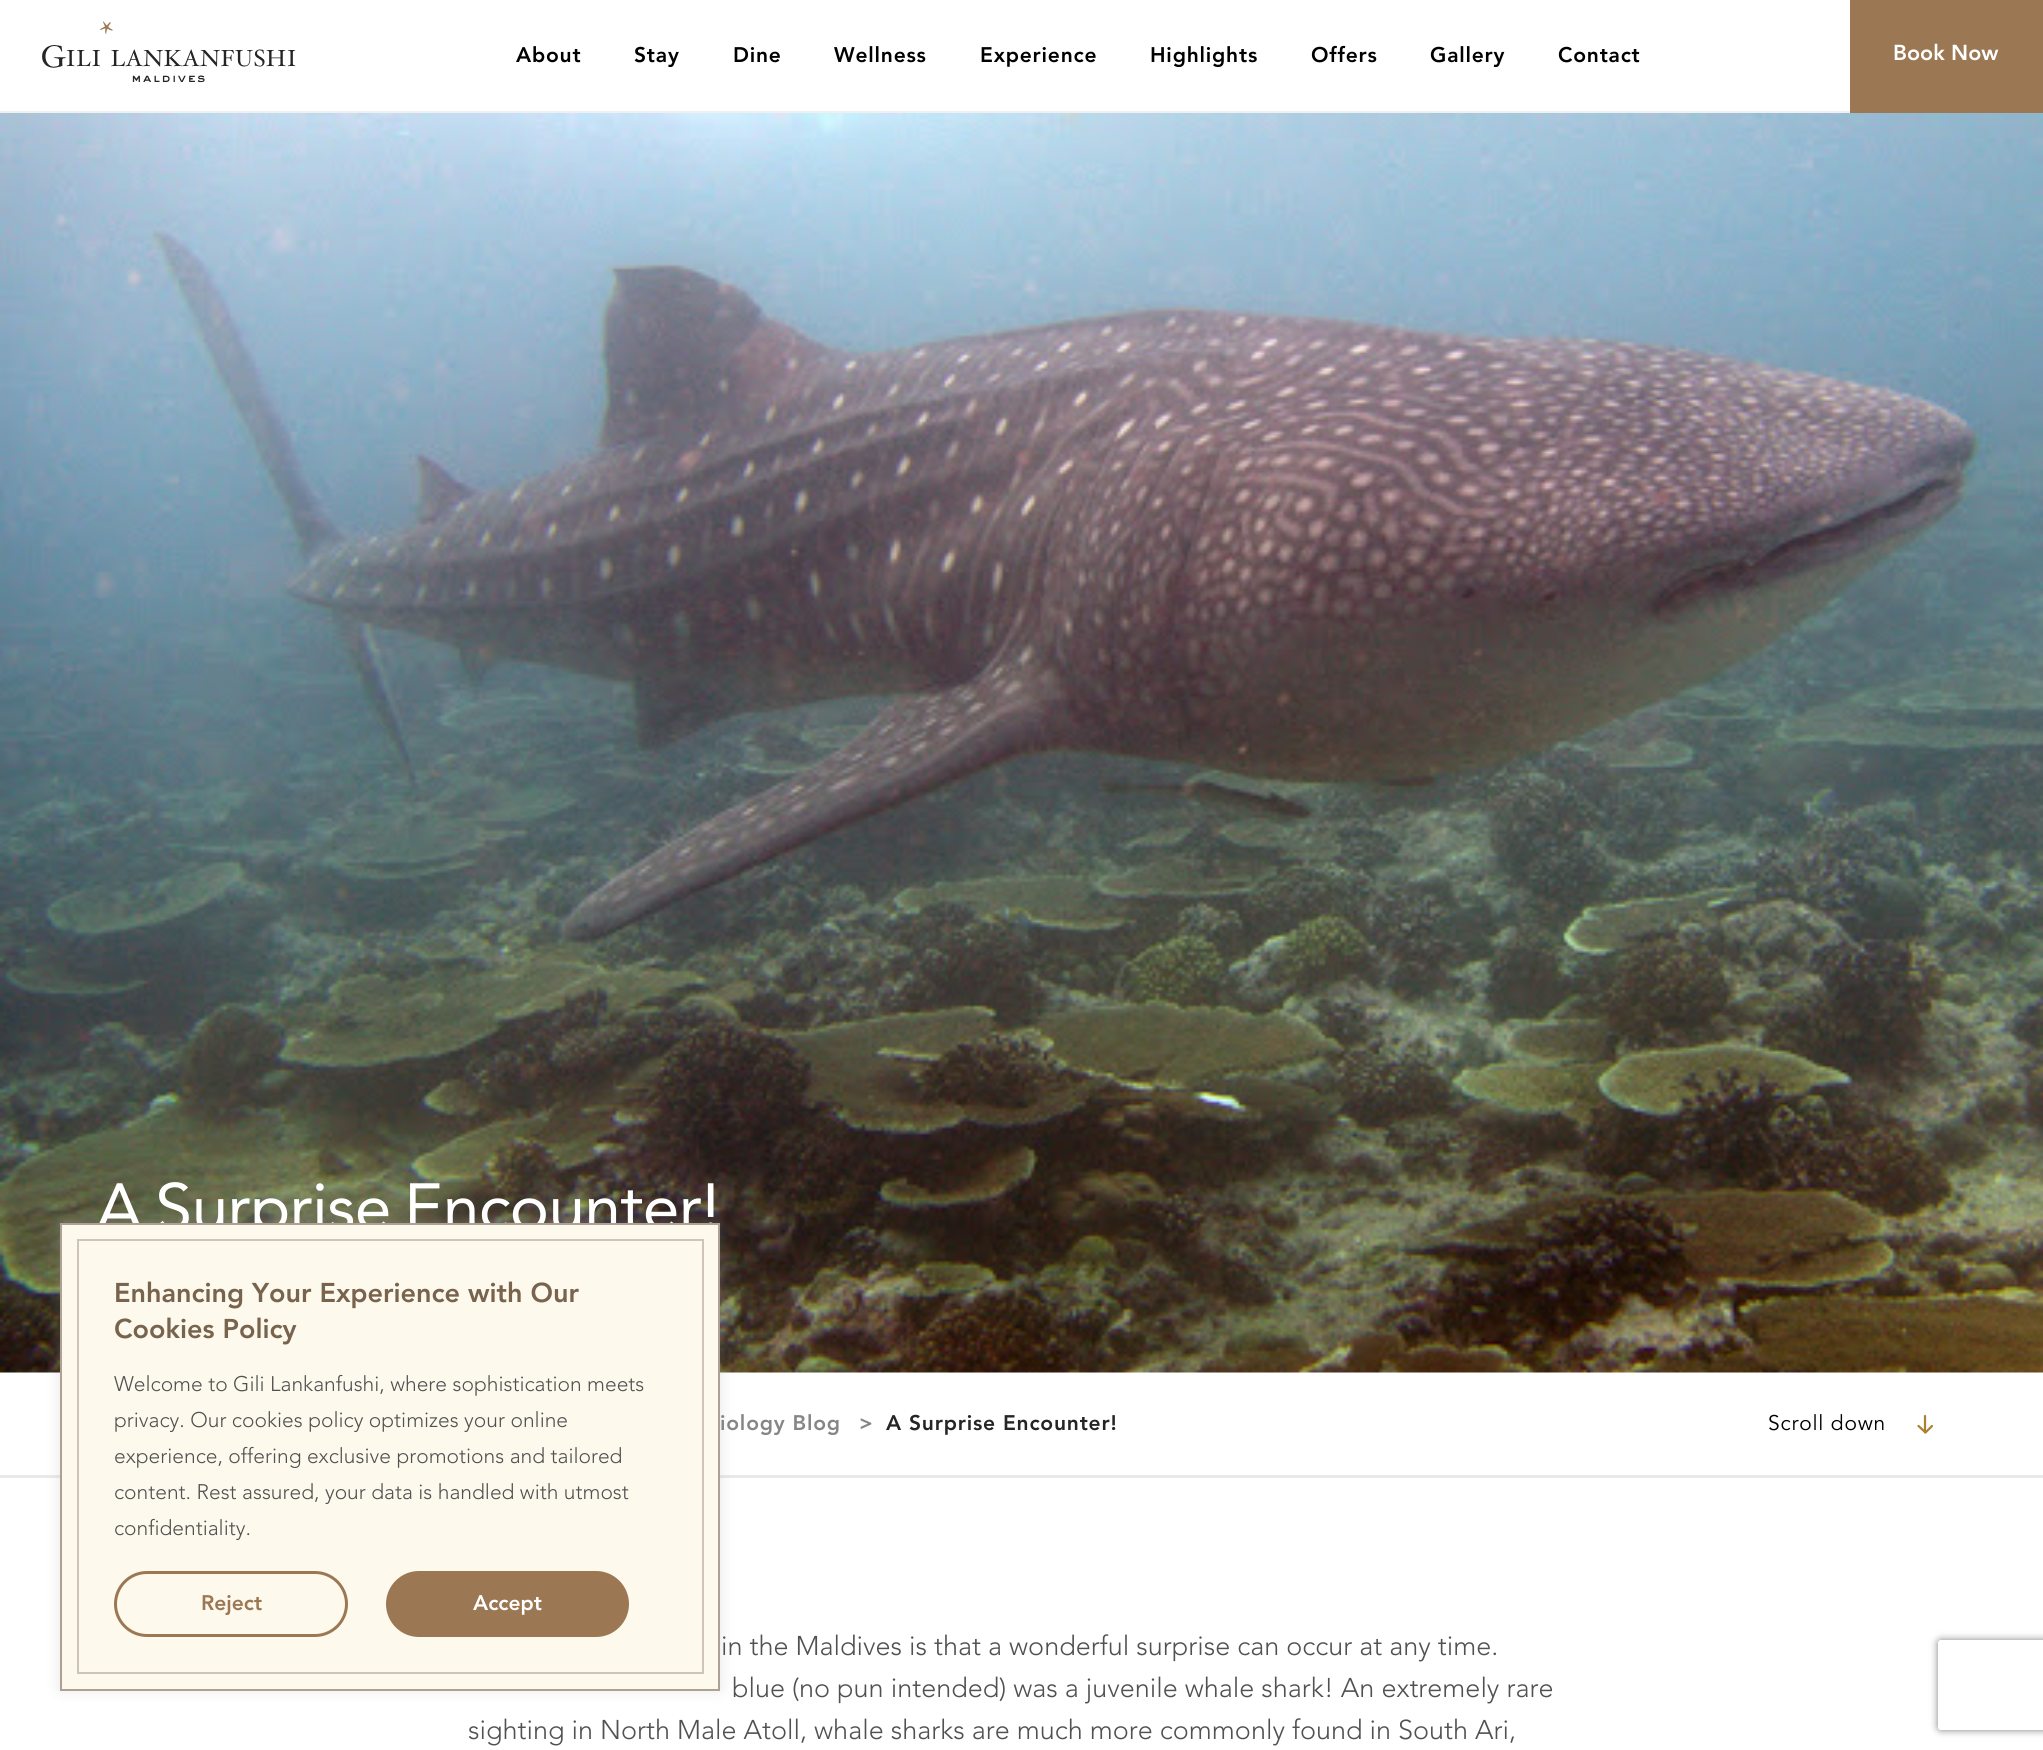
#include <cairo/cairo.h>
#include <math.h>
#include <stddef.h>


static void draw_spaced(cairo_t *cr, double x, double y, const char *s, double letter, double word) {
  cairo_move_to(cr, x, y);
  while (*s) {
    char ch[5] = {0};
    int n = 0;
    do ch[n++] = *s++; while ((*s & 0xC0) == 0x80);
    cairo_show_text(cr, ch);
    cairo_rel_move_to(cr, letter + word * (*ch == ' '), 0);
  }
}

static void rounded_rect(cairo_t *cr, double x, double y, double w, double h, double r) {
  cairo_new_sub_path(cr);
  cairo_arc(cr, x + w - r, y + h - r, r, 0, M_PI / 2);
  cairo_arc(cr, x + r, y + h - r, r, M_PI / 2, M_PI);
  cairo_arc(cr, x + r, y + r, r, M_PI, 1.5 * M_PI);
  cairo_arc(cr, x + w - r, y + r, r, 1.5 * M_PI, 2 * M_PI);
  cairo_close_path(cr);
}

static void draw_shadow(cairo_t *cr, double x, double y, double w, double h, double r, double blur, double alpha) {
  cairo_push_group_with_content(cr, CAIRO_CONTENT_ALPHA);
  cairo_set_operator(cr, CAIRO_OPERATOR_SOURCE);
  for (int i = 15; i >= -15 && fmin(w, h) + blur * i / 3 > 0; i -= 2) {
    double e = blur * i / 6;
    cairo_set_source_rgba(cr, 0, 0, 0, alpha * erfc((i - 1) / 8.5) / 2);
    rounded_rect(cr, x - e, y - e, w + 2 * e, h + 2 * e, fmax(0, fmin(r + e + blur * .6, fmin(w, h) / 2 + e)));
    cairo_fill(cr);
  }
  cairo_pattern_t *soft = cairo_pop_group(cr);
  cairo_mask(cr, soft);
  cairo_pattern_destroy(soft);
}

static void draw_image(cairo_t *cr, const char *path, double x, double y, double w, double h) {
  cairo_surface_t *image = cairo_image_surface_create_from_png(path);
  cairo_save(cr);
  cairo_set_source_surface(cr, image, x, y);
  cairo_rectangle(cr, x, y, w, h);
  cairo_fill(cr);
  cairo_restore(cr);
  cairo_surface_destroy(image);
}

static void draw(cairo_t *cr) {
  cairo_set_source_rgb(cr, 1, 1, 1);
  cairo_paint(cr);
  cairo_set_source_rgb(cr, 240 / 255.0, 240 / 255.0, 241 / 255.0);
  cairo_rectangle(cr, 0, 111, 1850, 2);
  cairo_fill(cr);
  draw_image(cr, "images/1.png", 42, 21, 254, 62);
  cairo_set_source_rgb(cr, 155 / 255.0, 119 / 255.0, 83 / 255.0);
  cairo_rectangle(cr, 1850, 0, 193, 113);
  cairo_fill(cr);
  draw_image(cr, "images/2.png", 0, 113, 2043, 1260);
  cairo_set_source_rgb(cr, 233 / 255.0, 233 / 255.0, 233 / 255.0);
  cairo_rectangle(cr, 0, 1475, 2043, 3);
  cairo_fill(cr);
  cairo_new_path(cr);
  cairo_move_to(cr, 1925, 1432.5);
  cairo_line_to(cr, 1925, 1416);
  cairo_move_to(cr, 1932, 1426);
  cairo_line_to(cr, 1925.5, 1432.5);
  cairo_line_to(cr, 1918.5, 1426);
  cairo_set_source_rgb(cr, 170 / 255.0, 130 / 255.0, 45 / 255.0);
  cairo_set_line_width(cr, 2.2);
  cairo_set_line_cap(cr, CAIRO_LINE_CAP_ROUND);
  cairo_set_line_join(cr, CAIRO_LINE_JOIN_ROUND);
  cairo_stroke(cr);
  cairo_set_source_rgb(cr, 172 / 255.0, 171 / 255.0, 171 / 255.0);
  draw_shadow(cr, 60, 1221, 660, 468, 0, 7.5, 0.3);
  cairo_save(cr);
  cairo_set_fill_rule(cr, CAIRO_FILL_RULE_EVEN_ODD);
  cairo_new_path(cr);
  cairo_move_to(cr, 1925, 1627);
  cairo_line_to(cr, 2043, 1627);
  cairo_line_to(cr, 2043, 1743);
  cairo_line_to(cr, 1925, 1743);
  cairo_close_path(cr);
  cairo_move_to(cr, 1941, 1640);
  cairo_line_to(cr, 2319, 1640);
  cairo_curve_to(cr, 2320.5, 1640, 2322, 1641.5, 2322, 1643);
  cairo_line_to(cr, 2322, 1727);
  cairo_curve_to(cr, 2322, 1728.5, 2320.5, 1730, 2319, 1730);
  cairo_line_to(cr, 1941, 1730);
  cairo_curve_to(cr, 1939.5, 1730, 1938, 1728.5, 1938, 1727);
  cairo_line_to(cr, 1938, 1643);
  cairo_curve_to(cr, 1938, 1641.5, 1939.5, 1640, 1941, 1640);
  cairo_close_path(cr);
  cairo_clip(cr);
  cairo_set_source_rgb(cr, 128 / 255.0, 128 / 255.0, 128 / 255.0);
  draw_shadow(cr, 1938, 1640, 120, 90, 3, 4, 1);
  cairo_restore(cr);
  cairo_select_font_face(cr, "Avenir Black", CAIRO_FONT_SLANT_NORMAL, CAIRO_FONT_WEIGHT_NORMAL);
  cairo_set_font_size(cr, 21);
  cairo_set_source_rgb(cr, 0, 0, 0);
  draw_spaced(cr, 516, 62, "About", 0.8, 0);
  draw_spaced(cr, 634, 62, "Stay", 0.8, 0);
  draw_spaced(cr, 733, 62, "Dine", 0.8, 0);
  draw_spaced(cr, 834, 62, "Wellness", 0.8, 0);
  draw_spaced(cr, 980, 62, "Experience", 0.8, 0);
  draw_spaced(cr, 1150, 62, "Highlights", 0.8, 0);
  draw_spaced(cr, 1311, 62, "Offers", 0.8, 0);
  draw_spaced(cr, 1430, 62, "Gallery", 0.8, 0);
  draw_spaced(cr, 1558, 62, "Contact", 0.8, 0);
  cairo_set_font_size(cr, 21.5);
  cairo_set_source_rgb(cr, 1, 1, 1);
  cairo_move_to(cr, 1893, 60);
  cairo_show_text(cr, "Book Now");
  cairo_select_font_face(cr, "Avenir", CAIRO_FONT_SLANT_NORMAL, CAIRO_FONT_WEIGHT_NORMAL);
  cairo_set_font_size(cr, 66);
  draw_spaced(cr, 96, 1230, "A Surprise Encounter!", -0.7, -4);
  cairo_select_font_face(cr, "Avenir Black", CAIRO_FONT_SLANT_NORMAL, CAIRO_FONT_WEIGHT_NORMAL);
  cairo_set_font_size(cr, 21);
  cairo_set_source_rgb(cr, 134 / 255.0, 134 / 255.0, 134 / 255.0);
  draw_spaced(cr, 720, 1430, "iology Blog", 0.8, 0);
  draw_spaced(cr, 859, 1430, ">", 0.8, 0);
  cairo_set_source_rgb(cr, 37 / 255.0, 37 / 255.0, 37 / 255.0);
  draw_spaced(cr, 886, 1430, "A Surprise Encounter!", 0.8, 0);
  cairo_select_font_face(cr, "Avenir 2", CAIRO_FONT_SLANT_NORMAL, CAIRO_FONT_WEIGHT_NORMAL);
  cairo_set_source_rgb(cr, 0, 0, 0);
  draw_spaced(cr, 1768, 1430, "Scroll down", 0.8, 0);
  cairo_select_font_face(cr, "Avenir Light", CAIRO_FONT_SLANT_NORMAL, CAIRO_FONT_WEIGHT_NORMAL);
  cairo_set_font_size(cr, 27);
  cairo_set_source_rgb(cr, 81 / 255.0, 81 / 255.0, 81 / 255.0);
  cairo_move_to(cr, 721, 1655);
  cairo_show_text(cr, "in the Maldives is that a wonderful surprise can occur at any time.");
  cairo_move_to(cr, 732, 1697);
  cairo_show_text(cr, "blue (no pun intended) was a juvenile whale shark! An extremely rare");
  cairo_move_to(cr, 468, 1739);
  cairo_show_text(cr, "sighting in North Male Atoll, whale sharks are much more commonly found in South Ari,");
  cairo_set_source_rgb(cr, 253 / 255.0, 249 / 255.0, 237 / 255.0);
  cairo_rectangle(cr, 61, 1224, 658, 466);
  cairo_fill_preserve(cr);
  cairo_set_source_rgb(cr, 174 / 255.0, 161 / 255.0, 148 / 255.0);
  cairo_set_line_width(cr, 2);
  cairo_set_line_cap(cr, CAIRO_LINE_CAP_BUTT);
  cairo_set_line_join(cr, CAIRO_LINE_JOIN_MITER);
  cairo_stroke(cr);
  cairo_rectangle(cr, 78, 1240, 625, 433);
  cairo_set_source_rgb(cr, 206 / 255.0, 196 / 255.0, 184 / 255.0);
  cairo_stroke(cr);
  cairo_select_font_face(cr, "Avenir Black", CAIRO_FONT_SLANT_NORMAL, CAIRO_FONT_WEIGHT_NORMAL);
  cairo_set_source_rgb(cr, 120 / 255.0, 99 / 255.0, 77 / 255.0);
  cairo_move_to(cr, 114, 1302);
  cairo_show_text(cr, "Enhancing Your Experience with Our");
  cairo_move_to(cr, 114, 1338);
  cairo_show_text(cr, "Cookies Policy");
  cairo_select_font_face(cr, "Avenir Light", CAIRO_FONT_SLANT_NORMAL, CAIRO_FONT_WEIGHT_NORMAL);
  cairo_set_font_size(cr, 21);
  cairo_set_source_rgb(cr, 81 / 255.0, 81 / 255.0, 81 / 255.0);
  cairo_move_to(cr, 114, 1391);
  cairo_show_text(cr, "Welcome to Gili Lankanfushi, where sophistication meets");
  cairo_move_to(cr, 114, 1427);
  cairo_show_text(cr, "privacy. Our cookies policy optimizes your online");
  cairo_move_to(cr, 114, 1463);
  cairo_show_text(cr, "experience, offering exclusive promotions and tailored");
  cairo_move_to(cr, 114, 1499);
  cairo_show_text(cr, "content. Rest assured, your data is handled with utmost");
  cairo_move_to(cr, 114, 1535);
  cairo_show_text(cr, "confidentiality.");
  rounded_rect(cr, 115.5, 1572.5, 231, 63, 31.5);
  cairo_set_source_rgb(cr, 155 / 255.0, 119 / 255.0, 83 / 255.0);
  cairo_set_line_width(cr, 3);
  cairo_stroke(cr);
  cairo_select_font_face(cr, "Avenir Black", CAIRO_FONT_SLANT_NORMAL, CAIRO_FONT_WEIGHT_NORMAL);
  cairo_move_to(cr, 201, 1610);
  cairo_show_text(cr, "Reject");
  rounded_rect(cr, 387.5, 1572.5, 240, 63, 31.5);
  cairo_fill_preserve(cr);
  cairo_stroke(cr);
  cairo_set_source_rgb(cr, 1, 1, 1);
  cairo_move_to(cr, 473, 1610);
  cairo_show_text(cr, "Accept");
}

int main(void) {
  cairo_surface_t *surface = cairo_image_surface_create(CAIRO_FORMAT_RGB24, 2043, 1750);
  cairo_t *cr = cairo_create(surface);
  cairo_font_options_t *options = cairo_font_options_create();
  cairo_font_options_set_hint_metrics(options, CAIRO_HINT_METRICS_OFF);
  cairo_font_options_set_hint_style(options, CAIRO_HINT_STYLE_NONE);
  cairo_set_font_options(cr, options);
  cairo_set_miter_limit(cr, 4);
  draw(cr);
  cairo_surface_write_to_png(surface, "out.png");
  cairo_font_options_destroy(options);
  cairo_destroy(cr);
  cairo_surface_destroy(surface);
  return 0;
}
